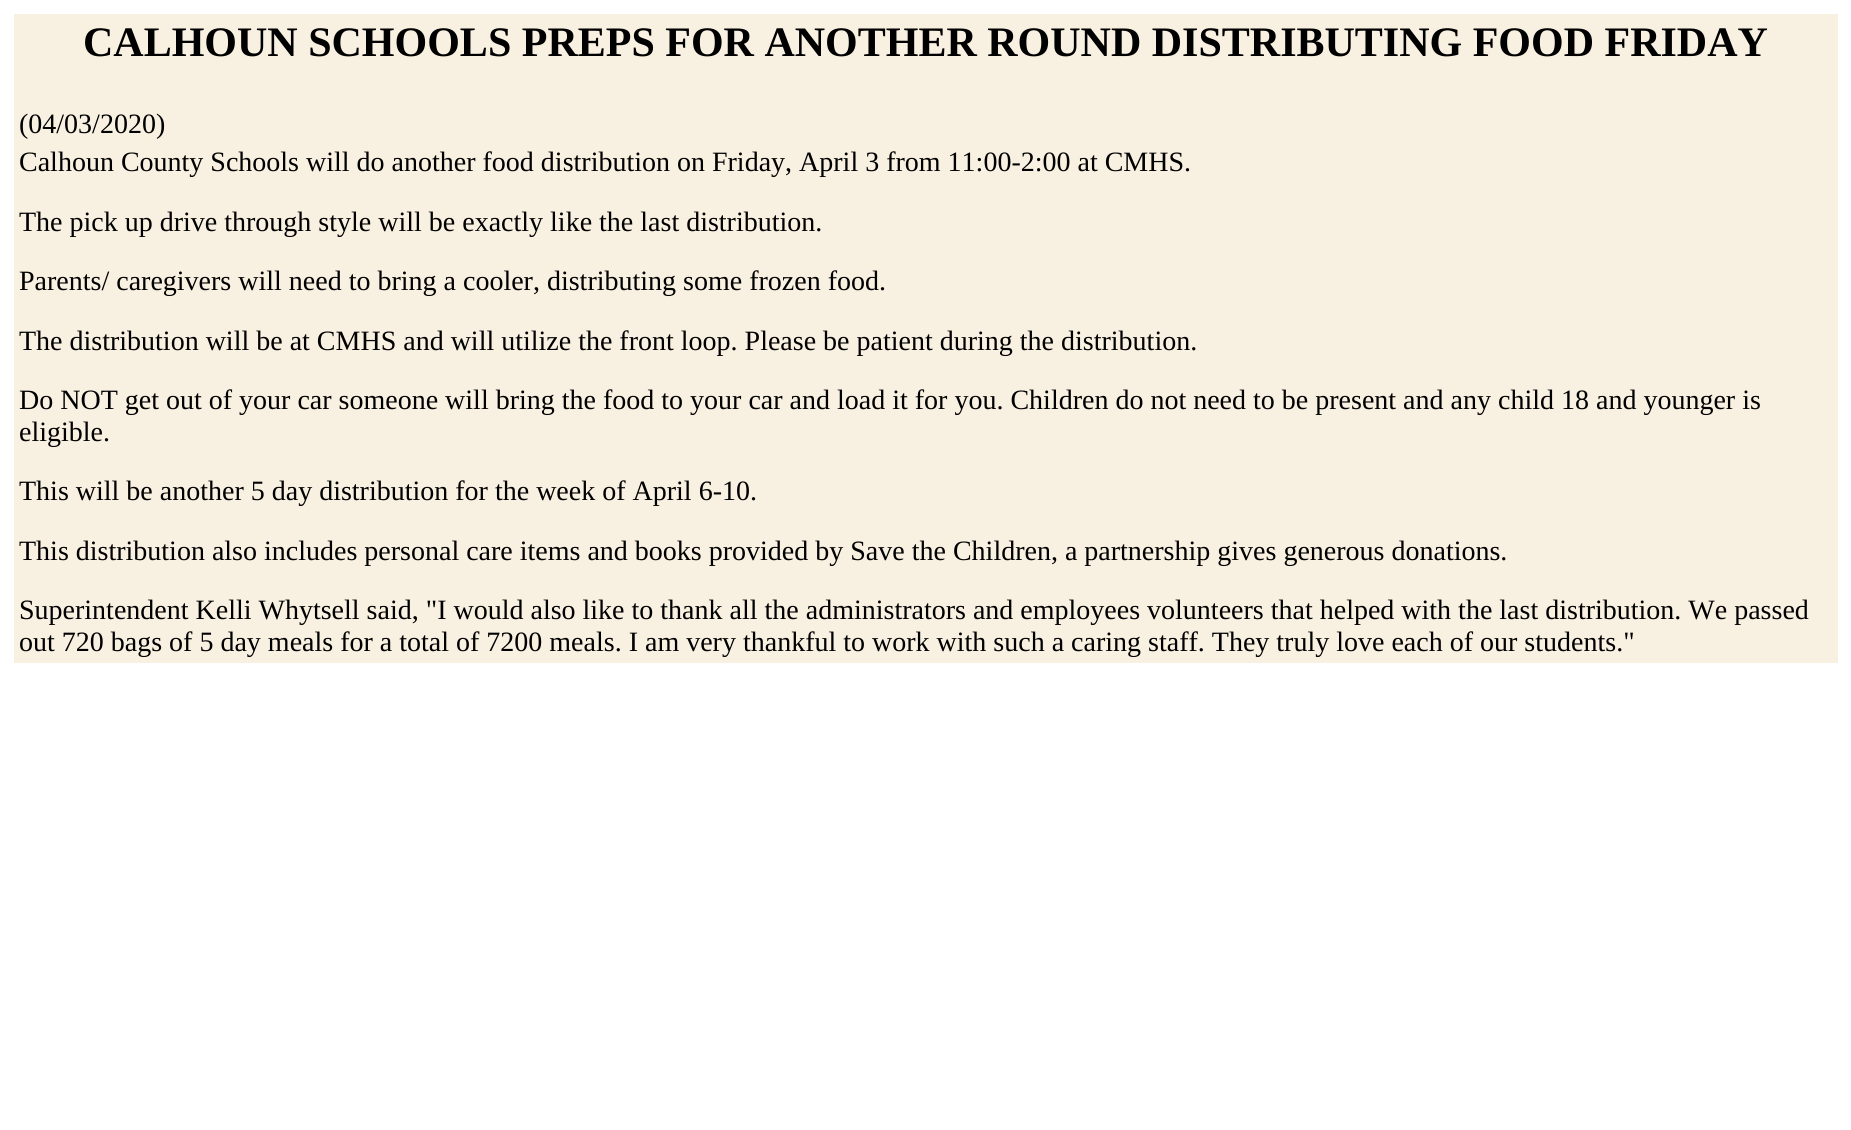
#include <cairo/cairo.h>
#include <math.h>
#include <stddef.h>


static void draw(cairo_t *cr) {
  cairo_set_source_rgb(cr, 1, 1, 1);
  cairo_paint(cr);
  cairo_set_source_rgb(cr, 248 / 255.0, 240 / 255.0, 224 / 255.0);
  cairo_rectangle(cr, 14, 14, 1824, 649);
  cairo_fill(cr);
  cairo_select_font_face(cr, "Liberation Serif", CAIRO_FONT_SLANT_NORMAL, CAIRO_FONT_WEIGHT_BOLD);
  cairo_set_font_size(cr, 42);
  cairo_set_source_rgb(cr, 0, 0, 0);
  cairo_move_to(cr, 83, 56);
  cairo_show_text(cr, "CALHOUN SCHOOLS PREPS FOR ANOTHER ROUND DISTRIBUTING FOOD FRIDAY");
  cairo_select_font_face(cr, "Liberation Serif", CAIRO_FONT_SLANT_NORMAL, CAIRO_FONT_WEIGHT_NORMAL);
  cairo_set_font_size(cr, 28);
  cairo_move_to(cr, 19, 133);
  cairo_show_text(cr, "(04/03/2020)");
  cairo_move_to(cr, 19, 171);
  cairo_show_text(cr, "Calhoun County Schools will do another food distribution on Friday, April 3 from 11:00-2:00 at CMHS.");
  cairo_move_to(cr, 19, 231);
  cairo_show_text(cr, "The pick up drive through style will be exactly like the last distribution.");
  cairo_move_to(cr, 19, 290);
  cairo_show_text(cr, "Parents/ caregivers will need to bring a cooler, distributing some frozen food.");
  cairo_move_to(cr, 19, 350);
  cairo_show_text(cr, "The distribution will be at CMHS and will utilize the front loop. Please be patient during the distribution.");
  cairo_move_to(cr, 19, 409);
  cairo_show_text(cr, "Do NOT get out of your car someone will bring the food to your car and load it for you. Children do not need to be present and any child 18 and younger is");
  cairo_move_to(cr, 19, 441);
  cairo_show_text(cr, "eligible.");
  cairo_move_to(cr, 19, 500);
  cairo_show_text(cr, "This will be another 5 day distribution for the week of April 6-10.");
  cairo_move_to(cr, 19, 560);
  cairo_show_text(cr, "This distribution also includes personal care items and books provided by Save the Children, a partnership gives generous donations.");
  cairo_move_to(cr, 19, 619);
  cairo_show_text(cr, "Superintendent Kelli Whytsell said, \"I would also like to thank all the administrators and employees volunteers that helped with the last distribution. We passed");
  cairo_move_to(cr, 19, 651);
  cairo_show_text(cr, "out 720 bags of 5 day meals for a total of 7200 meals. I am very thankful to work with such a caring staff. They truly love each of our students.\"");
}

int main(void) {
  cairo_surface_t *surface = cairo_image_surface_create(CAIRO_FORMAT_RGB24, 1851, 1130);
  cairo_t *cr = cairo_create(surface);
  cairo_font_options_t *options = cairo_font_options_create();
  cairo_font_options_set_hint_metrics(options, CAIRO_HINT_METRICS_OFF);
  cairo_font_options_set_hint_style(options, CAIRO_HINT_STYLE_NONE);
  cairo_set_font_options(cr, options);
  cairo_set_miter_limit(cr, 4);
  draw(cr);
  cairo_surface_write_to_png(surface, "out.png");
  cairo_font_options_destroy(options);
  cairo_destroy(cr);
  cairo_surface_destroy(surface);
  return 0;
}
